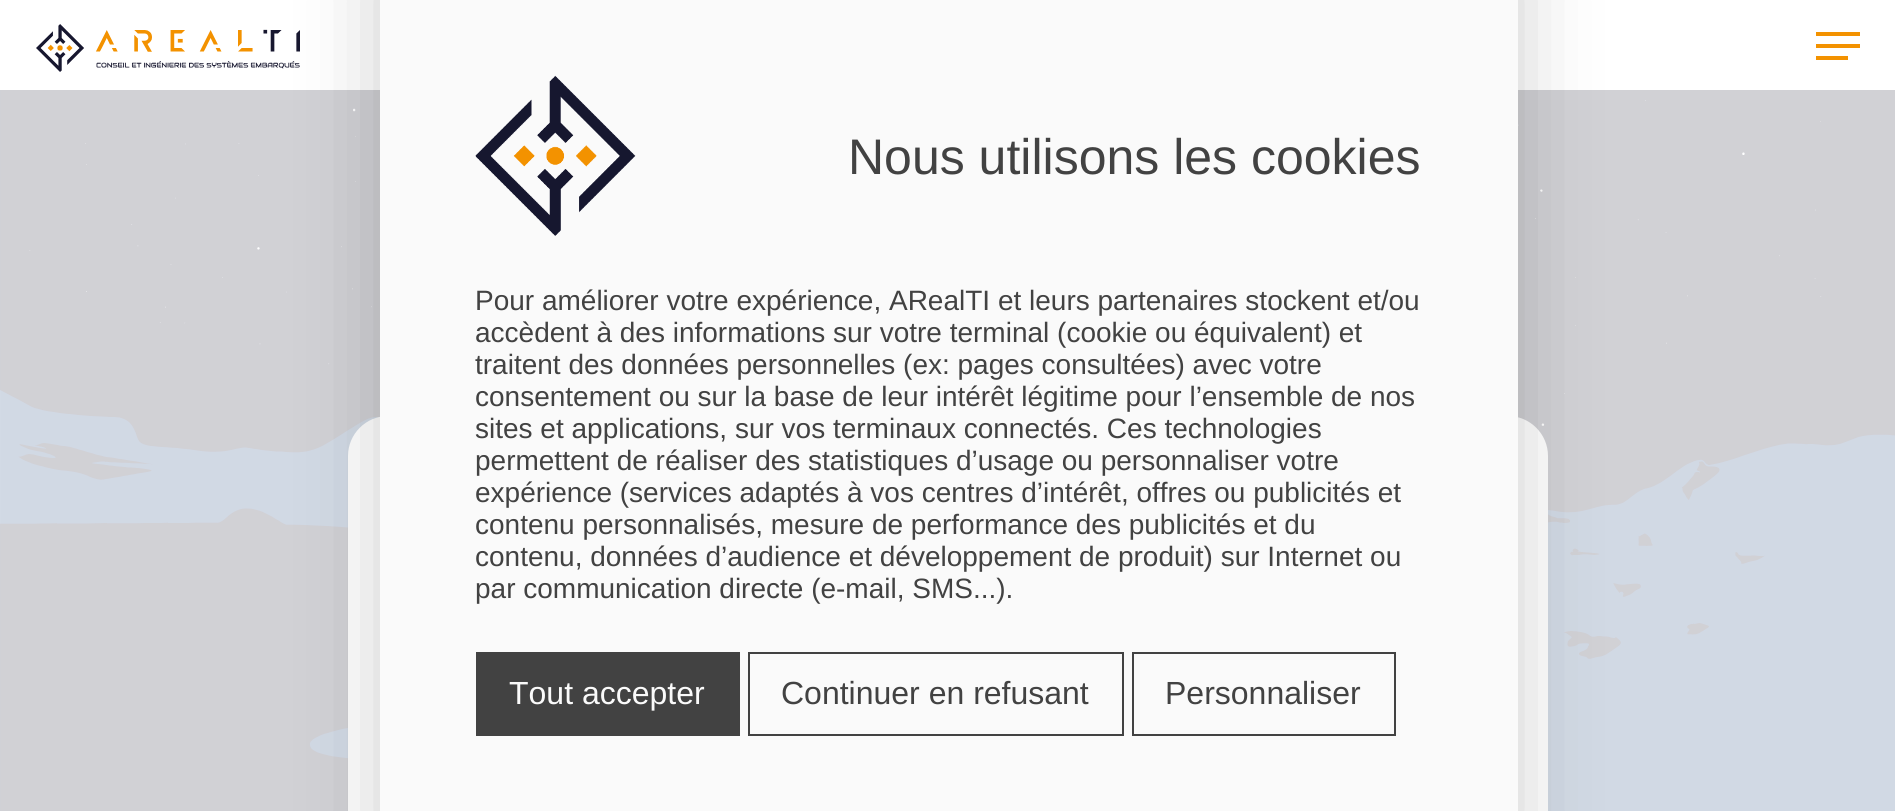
#include <cairo/cairo.h>
#include <math.h>
#include <stddef.h>


static void rounded_rect(cairo_t *cr, double x, double y, double w, double h, double r) {
  cairo_new_sub_path(cr);
  cairo_arc(cr, x + w - r, y + h - r, r, 0, M_PI / 2);
  cairo_arc(cr, x + r, y + h - r, r, M_PI / 2, M_PI);
  cairo_arc(cr, x + r, y + r, r, M_PI, 1.5 * M_PI);
  cairo_arc(cr, x + w - r, y + r, r, 1.5 * M_PI, 2 * M_PI);
  cairo_close_path(cr);
}

static void draw_shadow(cairo_t *cr, double x, double y, double w, double h, double r, double blur, double alpha) {
  cairo_push_group_with_content(cr, CAIRO_CONTENT_ALPHA);
  cairo_set_operator(cr, CAIRO_OPERATOR_SOURCE);
  for (int i = 15; i >= -15 && fmin(w, h) + blur * i / 3 > 0; i -= 2) {
    double e = blur * i / 6;
    cairo_set_source_rgba(cr, 0, 0, 0, alpha * erfc((i - 1) / 8.5) / 2);
    rounded_rect(cr, x - e, y - e, w + 2 * e, h + 2 * e, fmax(0, fmin(r + e + blur * .6, fmin(w, h) / 2 + e)));
    cairo_fill(cr);
  }
  cairo_pattern_t *soft = cairo_pop_group(cr);
  cairo_mask(cr, soft);
  cairo_pattern_destroy(soft);
}

static void draw_image(cairo_t *cr, const char *path, double x, double y, double w, double h) {
  cairo_surface_t *image = cairo_image_surface_create_from_png(path);
  cairo_save(cr);
  cairo_set_source_surface(cr, image, x, y);
  cairo_rectangle(cr, x, y, w, h);
  cairo_fill(cr);
  cairo_restore(cr);
  cairo_surface_destroy(image);
}

static void draw(cairo_t *cr) {
  cairo_set_source_rgb(cr, 1, 1, 1);
  cairo_paint(cr);
  draw_image(cr, "images/1.png", 36, 24, 264, 48);
  cairo_set_source_rgb(cr, 243 / 255.0, 146 / 255.0, 0);
  cairo_rectangle(cr, 1816, 32, 44, 4);
  cairo_fill(cr);
  cairo_rectangle(cr, 1816, 56, 32, 4);
  cairo_fill(cr);
  cairo_rectangle(cr, 1816, 44, 44, 4);
  cairo_fill(cr);
  draw_image(cr, "images/2.png", 0, 90, 1895, 721);
  cairo_set_source_rgb(cr, 1, 1, 1);
  cairo_new_path(cr);
  cairo_move_to(cr, 388, 416);
  cairo_line_to(cr, 1508, 416);
  cairo_curve_to(cr, 1530, 416, 1548, 434, 1548, 456);
  cairo_line_to(cr, 1548, 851);
  cairo_line_to(cr, 348, 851);
  cairo_line_to(cr, 348, 456);
  cairo_curve_to(cr, 348, 434, 366, 416, 388, 416);
  cairo_close_path(cr);
  cairo_fill(cr);
  cairo_set_source_rgb(cr, 0, 0, 0);
  draw_shadow(cr, 380, -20, 1138, 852, 0, 40, 0.2);
  cairo_set_source_rgb(cr, 250 / 255.0, 250 / 255.0, 250 / 255.0);
  cairo_rectangle(cr, 380, 0, 1138, 811);
  cairo_fill(cr);
  draw_image(cr, "images/3.png", 475, 75, 161, 161);
  cairo_set_source_rgb(cr, 66 / 255.0, 66 / 255.0, 66 / 255.0);
  cairo_rectangle(cr, 476, 652, 264, 84);
  cairo_fill(cr);
  cairo_rectangle(cr, 749, 653, 374, 82);
  cairo_stroke(cr);
  cairo_rectangle(cr, 1133, 653, 262, 82);
  cairo_stroke(cr);
  cairo_select_font_face(cr, "Liberation Sans", CAIRO_FONT_SLANT_NORMAL, CAIRO_FONT_WEIGHT_NORMAL);
  cairo_set_font_size(cr, 50);
  cairo_move_to(cr, 848, 174);
  cairo_show_text(cr, "Nous utilisons les cookies");
  cairo_set_font_size(cr, 28);
  cairo_move_to(cr, 475, 310);
  cairo_show_text(cr, "Pour améliorer votre expérience, ARealTI et leurs partenaires stockent et/ou");
  cairo_move_to(cr, 475, 342);
  cairo_show_text(cr, "accèdent à des informations sur votre terminal (cookie ou équivalent) et");
  cairo_move_to(cr, 475, 374);
  cairo_show_text(cr, "traitent des données personnelles (ex: pages consultées) avec votre");
  cairo_move_to(cr, 475, 406);
  cairo_show_text(cr, "consentement ou sur la base de leur intérêt légitime pour l’ensemble de nos");
  cairo_move_to(cr, 475, 438);
  cairo_show_text(cr, "sites et applications, sur vos terminaux connectés. Ces technologies");
  cairo_move_to(cr, 475, 470);
  cairo_show_text(cr, "permettent de réaliser des statistiques d’usage ou personnaliser votre");
  cairo_move_to(cr, 475, 502);
  cairo_show_text(cr, "expérience (services adaptés à vos centres d’intérêt, offres ou publicités et");
  cairo_move_to(cr, 475, 534);
  cairo_show_text(cr, "contenu personnalisés, mesure de performance des publicités et du");
  cairo_move_to(cr, 475, 566);
  cairo_show_text(cr, "contenu, données d’audience et développement de produit) sur Internet ou");
  cairo_move_to(cr, 475, 598);
  cairo_show_text(cr, "par communication directe (e-mail, SMS...).");
  cairo_set_font_size(cr, 32);
  cairo_set_source_rgb(cr, 250 / 255.0, 250 / 255.0, 250 / 255.0);
  cairo_move_to(cr, 509, 704);
  cairo_show_text(cr, "Tout accepter");
  cairo_set_source_rgb(cr, 66 / 255.0, 66 / 255.0, 66 / 255.0);
  cairo_move_to(cr, 781, 704);
  cairo_show_text(cr, "Continuer en refusant");
  cairo_move_to(cr, 1165, 704);
  cairo_show_text(cr, "Personnaliser");
}

int main(void) {
  cairo_surface_t *surface = cairo_image_surface_create(CAIRO_FORMAT_RGB24, 1895, 811);
  cairo_t *cr = cairo_create(surface);
  cairo_font_options_t *options = cairo_font_options_create();
  cairo_font_options_set_hint_metrics(options, CAIRO_HINT_METRICS_OFF);
  cairo_font_options_set_hint_style(options, CAIRO_HINT_STYLE_NONE);
  cairo_set_font_options(cr, options);
  cairo_set_miter_limit(cr, 4);
  draw(cr);
  cairo_surface_write_to_png(surface, "out.png");
  cairo_font_options_destroy(options);
  cairo_destroy(cr);
  cairo_surface_destroy(surface);
  return 0;
}
